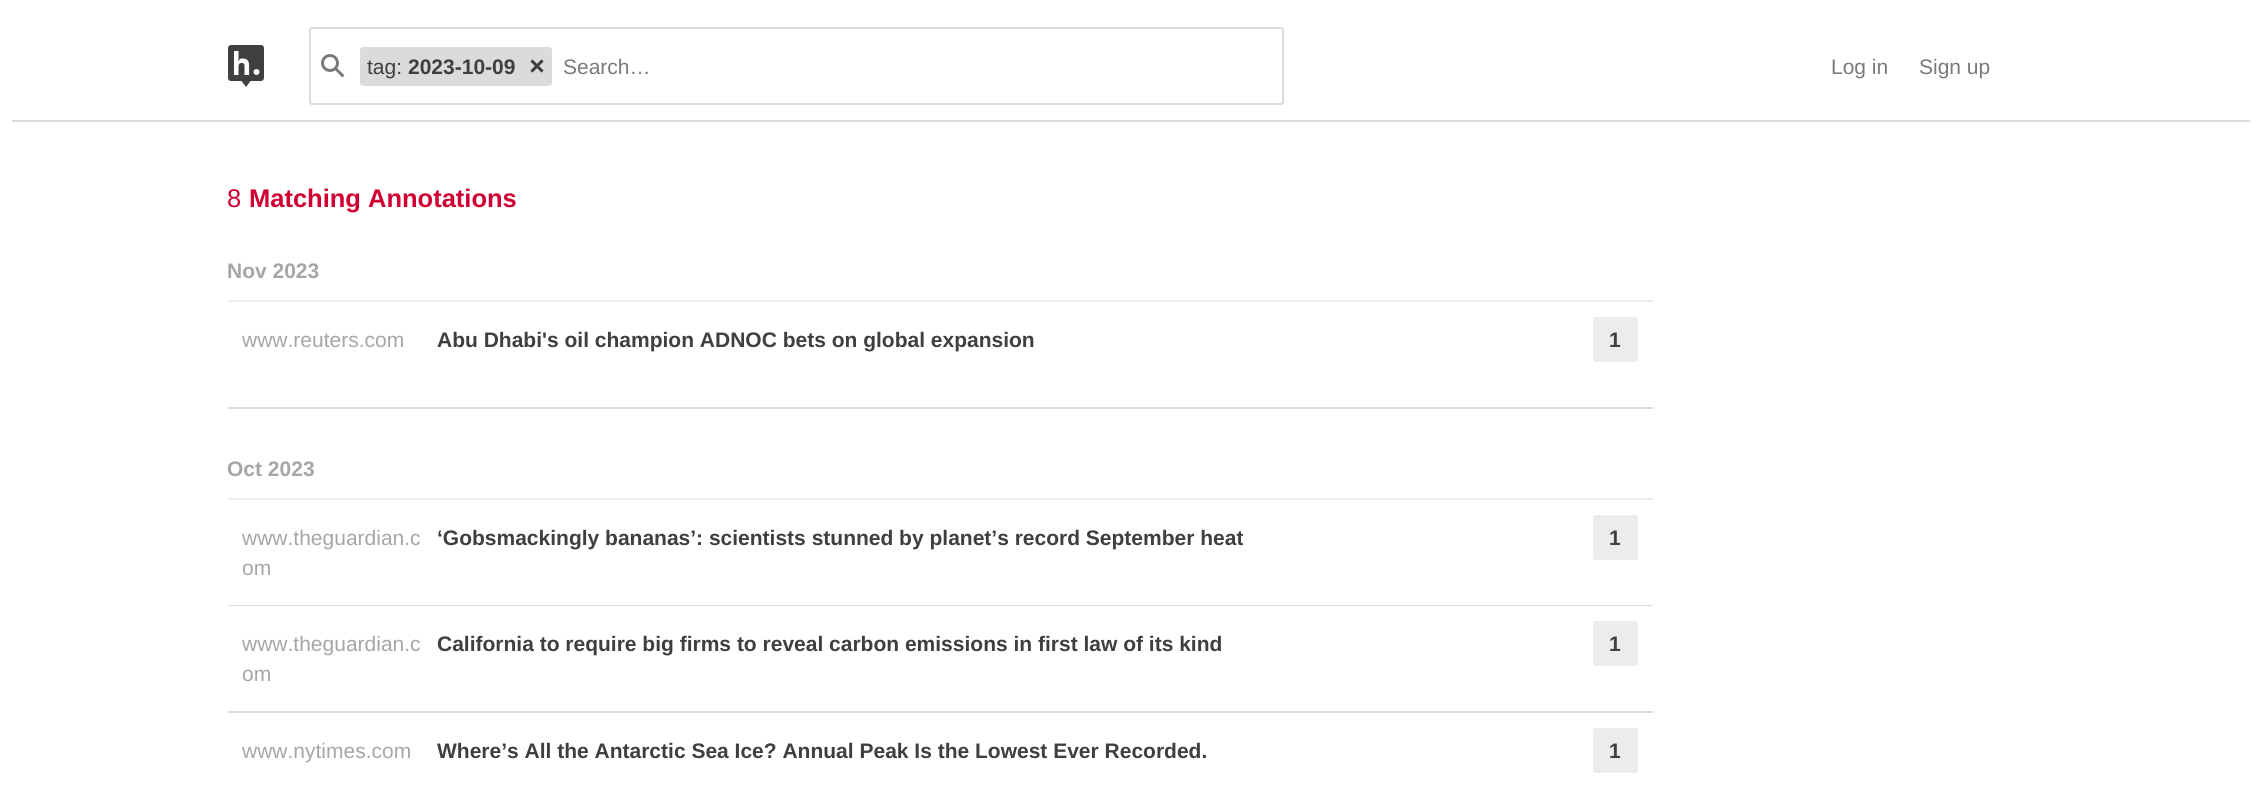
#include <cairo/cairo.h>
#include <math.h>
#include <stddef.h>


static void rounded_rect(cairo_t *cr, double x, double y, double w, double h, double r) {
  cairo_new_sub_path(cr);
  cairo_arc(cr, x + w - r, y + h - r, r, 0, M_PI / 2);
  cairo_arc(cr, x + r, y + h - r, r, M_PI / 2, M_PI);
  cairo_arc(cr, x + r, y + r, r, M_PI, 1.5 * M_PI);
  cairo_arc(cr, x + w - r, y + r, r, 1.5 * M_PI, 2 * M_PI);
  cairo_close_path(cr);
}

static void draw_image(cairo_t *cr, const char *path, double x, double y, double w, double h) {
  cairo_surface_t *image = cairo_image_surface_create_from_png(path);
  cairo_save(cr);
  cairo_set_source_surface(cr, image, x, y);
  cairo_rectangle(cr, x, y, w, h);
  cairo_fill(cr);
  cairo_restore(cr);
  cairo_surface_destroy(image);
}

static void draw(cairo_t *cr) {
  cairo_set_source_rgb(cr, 1, 1, 1);
  cairo_paint(cr);
  cairo_set_source_rgb(cr, 219 / 255.0, 219 / 255.0, 219 / 255.0);
  cairo_rectangle(cr, 12, 120, 2238, 2);
  cairo_fill(cr);
  draw_image(cr, "images/1.png", 228, 45, 36, 42);
  rounded_rect(cr, 310, 28, 973, 76, 2);
  cairo_stroke(cr);
  draw_image(cr, "images/2.png", 321, 54, 24, 24);
  rounded_rect(cr, 360, 47, 192, 39, 3);
  cairo_fill(cr);
  draw_image(cr, "images/3.png", 530, 59, 14, 14);
  cairo_set_source_rgb(cr, 236 / 255.0, 236 / 255.0, 236 / 255.0);
  cairo_rectangle(cr, 228, 300, 1425, 2);
  cairo_fill(cr);
  cairo_set_source_rgb(cr, 219 / 255.0, 219 / 255.0, 219 / 255.0);
  cairo_rectangle(cr, 228, 407, 1425, 2);
  cairo_fill(cr);
  cairo_set_source_rgb(cr, 236 / 255.0, 236 / 255.0, 236 / 255.0);
  rounded_rect(cr, 1593, 317, 45, 45, 3);
  cairo_fill(cr);
  cairo_rectangle(cr, 228, 498, 1425, 2);
  cairo_fill(cr);
  cairo_set_source_rgb(cr, 219 / 255.0, 219 / 255.0, 219 / 255.0);
  cairo_rectangle(cr, 228, 605, 1425, 1);
  cairo_fill(cr);
  cairo_set_source_rgb(cr, 236 / 255.0, 236 / 255.0, 236 / 255.0);
  rounded_rect(cr, 1593, 515, 45, 45, 3);
  cairo_fill(cr);
  cairo_set_source_rgb(cr, 219 / 255.0, 219 / 255.0, 219 / 255.0);
  cairo_rectangle(cr, 228, 711, 1425, 2);
  cairo_fill(cr);
  cairo_set_source_rgb(cr, 236 / 255.0, 236 / 255.0, 236 / 255.0);
  rounded_rect(cr, 1593, 621, 45, 45, 3);
  cairo_fill(cr);
  rounded_rect(cr, 1593, 728, 45, 45, 3);
  cairo_fill(cr);
  cairo_select_font_face(cr, "Liberation Sans", CAIRO_FONT_SLANT_NORMAL, CAIRO_FONT_WEIGHT_NORMAL);
  cairo_set_font_size(cr, 21);
  cairo_set_source_rgb(cr, 63 / 255.0, 63 / 255.0, 63 / 255.0);
  cairo_move_to(cr, 367, 74);
  cairo_show_text(cr, "tag:");
  cairo_select_font_face(cr, "Liberation Sans", CAIRO_FONT_SLANT_NORMAL, CAIRO_FONT_WEIGHT_BOLD);
  cairo_move_to(cr, 408, 74);
  cairo_show_text(cr, "2023-10-09");
  cairo_select_font_face(cr, "Liberation Sans", CAIRO_FONT_SLANT_NORMAL, CAIRO_FONT_WEIGHT_NORMAL);
  cairo_set_source_rgb(cr, 122 / 255.0, 122 / 255.0, 122 / 255.0);
  cairo_move_to(cr, 563, 74);
  cairo_show_text(cr, "Search…");
  cairo_move_to(cr, 1831, 74);
  cairo_show_text(cr, "Log in");
  cairo_move_to(cr, 1919, 74);
  cairo_show_text(cr, "Sign up");
  cairo_set_font_size(cr, 25.5);
  cairo_set_source_rgb(cr, 208 / 255.0, 0, 50 / 255.0);
  cairo_move_to(cr, 227, 207);
  cairo_show_text(cr, "8");
  cairo_select_font_face(cr, "Liberation Sans", CAIRO_FONT_SLANT_NORMAL, CAIRO_FONT_WEIGHT_BOLD);
  cairo_move_to(cr, 249, 207);
  cairo_show_text(cr, "Matching Annotations");
  cairo_set_font_size(cr, 21);
  cairo_set_source_rgb(cr, 166 / 255.0, 166 / 255.0, 166 / 255.0);
  cairo_move_to(cr, 227, 278);
  cairo_show_text(cr, "Nov 2023");
  cairo_select_font_face(cr, "Liberation Sans", CAIRO_FONT_SLANT_NORMAL, CAIRO_FONT_WEIGHT_NORMAL);
  cairo_move_to(cr, 242, 347);
  cairo_show_text(cr, "www.reuters.com");
  cairo_select_font_face(cr, "Liberation Sans", CAIRO_FONT_SLANT_NORMAL, CAIRO_FONT_WEIGHT_BOLD);
  cairo_set_source_rgb(cr, 63 / 255.0, 63 / 255.0, 63 / 255.0);
  cairo_move_to(cr, 437, 347);
  cairo_show_text(cr, "Abu Dhabi's oil champion ADNOC bets on global expansion");
  cairo_move_to(cr, 1609, 347);
  cairo_show_text(cr, "1");
  cairo_set_source_rgb(cr, 166 / 255.0, 166 / 255.0, 166 / 255.0);
  cairo_move_to(cr, 227, 476);
  cairo_show_text(cr, "Oct 2023");
  cairo_select_font_face(cr, "Liberation Sans", CAIRO_FONT_SLANT_NORMAL, CAIRO_FONT_WEIGHT_NORMAL);
  cairo_move_to(cr, 242, 545);
  cairo_show_text(cr, "www.theguardian.c");
  cairo_move_to(cr, 242, 575);
  cairo_show_text(cr, "om");
  cairo_select_font_face(cr, "Liberation Sans", CAIRO_FONT_SLANT_NORMAL, CAIRO_FONT_WEIGHT_BOLD);
  cairo_set_source_rgb(cr, 63 / 255.0, 63 / 255.0, 63 / 255.0);
  cairo_move_to(cr, 437, 545);
  cairo_show_text(cr, "‘Gobsmackingly bananas’: scientists stunned by planet’s record September heat");
  cairo_move_to(cr, 1609, 545);
  cairo_show_text(cr, "1");
  cairo_select_font_face(cr, "Liberation Sans", CAIRO_FONT_SLANT_NORMAL, CAIRO_FONT_WEIGHT_NORMAL);
  cairo_set_source_rgb(cr, 166 / 255.0, 166 / 255.0, 166 / 255.0);
  cairo_move_to(cr, 242, 651);
  cairo_show_text(cr, "www.theguardian.c");
  cairo_move_to(cr, 242, 681);
  cairo_show_text(cr, "om");
  cairo_select_font_face(cr, "Liberation Sans", CAIRO_FONT_SLANT_NORMAL, CAIRO_FONT_WEIGHT_BOLD);
  cairo_set_source_rgb(cr, 63 / 255.0, 63 / 255.0, 63 / 255.0);
  cairo_move_to(cr, 437, 651);
  cairo_show_text(cr, "California to require big firms to reveal carbon emissions in first law of its kind");
  cairo_move_to(cr, 1609, 651);
  cairo_show_text(cr, "1");
  cairo_select_font_face(cr, "Liberation Sans", CAIRO_FONT_SLANT_NORMAL, CAIRO_FONT_WEIGHT_NORMAL);
  cairo_set_source_rgb(cr, 166 / 255.0, 166 / 255.0, 166 / 255.0);
  cairo_move_to(cr, 242, 758);
  cairo_show_text(cr, "www.nytimes.com");
  cairo_select_font_face(cr, "Liberation Sans", CAIRO_FONT_SLANT_NORMAL, CAIRO_FONT_WEIGHT_BOLD);
  cairo_set_source_rgb(cr, 63 / 255.0, 63 / 255.0, 63 / 255.0);
  cairo_move_to(cr, 437, 758);
  cairo_show_text(cr, "Where’s All the Antarctic Sea Ice? Annual Peak Is the Lowest Ever Recorded.");
  cairo_move_to(cr, 1609, 758);
  cairo_show_text(cr, "1");
}

int main(void) {
  cairo_surface_t *surface = cairo_image_surface_create(CAIRO_FORMAT_RGB24, 2262, 803);
  cairo_t *cr = cairo_create(surface);
  cairo_font_options_t *options = cairo_font_options_create();
  cairo_font_options_set_hint_metrics(options, CAIRO_HINT_METRICS_OFF);
  cairo_font_options_set_hint_style(options, CAIRO_HINT_STYLE_NONE);
  cairo_set_font_options(cr, options);
  cairo_set_miter_limit(cr, 4);
  draw(cr);
  cairo_surface_write_to_png(surface, "out.png");
  cairo_font_options_destroy(options);
  cairo_destroy(cr);
  cairo_surface_destroy(surface);
  return 0;
}
